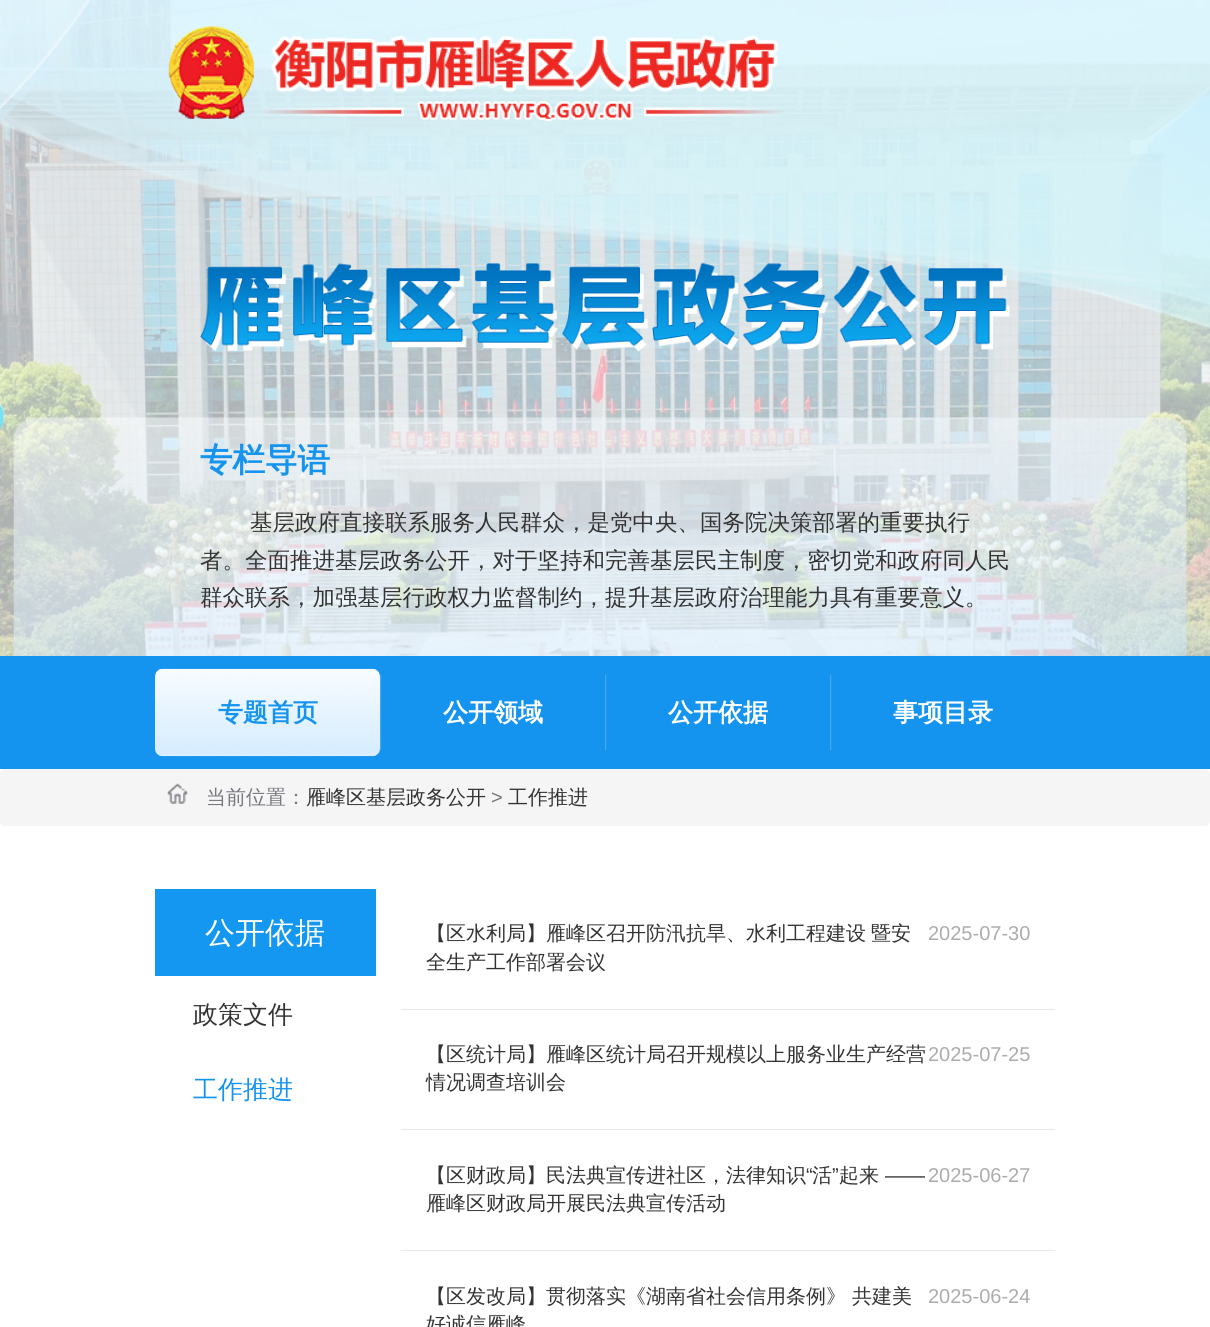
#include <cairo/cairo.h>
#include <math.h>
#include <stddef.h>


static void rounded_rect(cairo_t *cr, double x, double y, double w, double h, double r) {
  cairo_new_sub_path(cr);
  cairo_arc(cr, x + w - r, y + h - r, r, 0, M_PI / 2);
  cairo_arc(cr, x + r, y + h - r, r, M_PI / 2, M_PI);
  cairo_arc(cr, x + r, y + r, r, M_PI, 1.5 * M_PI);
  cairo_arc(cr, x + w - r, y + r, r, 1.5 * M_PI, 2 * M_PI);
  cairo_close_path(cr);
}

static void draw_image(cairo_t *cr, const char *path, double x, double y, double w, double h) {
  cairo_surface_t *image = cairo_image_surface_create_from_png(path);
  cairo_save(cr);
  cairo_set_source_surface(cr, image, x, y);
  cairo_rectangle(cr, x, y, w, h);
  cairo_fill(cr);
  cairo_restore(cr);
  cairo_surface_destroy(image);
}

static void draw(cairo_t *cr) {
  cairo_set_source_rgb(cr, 1, 1, 1);
  cairo_paint(cr);
  draw_image(cr, "images/1.png", 0, 0, 1210, 656);
  draw_image(cr, "images/2.png", 168, 26, 617, 96);
  draw_image(cr, "images/3.png", 200, 262, 810, 90);
  cairo_set_source_rgb(cr, 20 / 255.0, 148 / 255.0, 239 / 255.0);
  cairo_rectangle(cr, 0, 656, 1210, 113);
  cairo_fill(cr);
  draw_image(cr, "images/4.png", 155, 668, 225, 89);
  draw_image(cr, "images/5.png", 380, 675, 2, 75);
  draw_image(cr, "images/5.png", 605, 675, 2, 75);
  draw_image(cr, "images/5.png", 830, 675, 2, 75);
  cairo_set_source_rgb(cr, 245 / 255.0, 245 / 255.0, 245 / 255.0);
  rounded_rect(cr, 0, 769, 1210, 57, 5);
  cairo_fill(cr);
  draw_image(cr, "images/6.png", 167, 783, 21, 21);
  cairo_set_source_rgb(cr, 19 / 255.0, 151 / 255.0, 241 / 255.0);
  cairo_rectangle(cr, 155, 889, 221, 87);
  cairo_fill(cr);
  cairo_set_source_rgb(cr, 231 / 255.0, 231 / 255.0, 231 / 255.0);
  cairo_rectangle(cr, 401, 1009, 654, 1);
  cairo_fill(cr);
  cairo_rectangle(cr, 401, 1129, 654, 1);
  cairo_fill(cr);
  cairo_rectangle(cr, 401, 1250, 654, 1);
  cairo_fill(cr);
  cairo_select_font_face(cr, "WenQuanYi Zen Hei", CAIRO_FONT_SLANT_NORMAL, CAIRO_FONT_WEIGHT_BOLD);
  cairo_set_font_size(cr, 32.5);
  cairo_set_source_rgb(cr, 20 / 255.0, 148 / 255.0, 239 / 255.0);
  cairo_move_to(cr, 200, 471);
  cairo_show_text(cr, "专栏导语");
  cairo_select_font_face(cr, "WenQuanYi Zen Hei Medium", CAIRO_FONT_SLANT_NORMAL, CAIRO_FONT_WEIGHT_NORMAL);
  cairo_set_font_size(cr, 22.5);
  cairo_set_source_rgb(cr, 51 / 255.0, 51 / 255.0, 51 / 255.0);
  cairo_move_to(cr, 250, 530);
  cairo_show_text(cr, "基层政府直接联系服务人民群众，是党中央、国务院决策部署的重要执行");
  cairo_move_to(cr, 200, 568);
  cairo_show_text(cr, "者。全面推进基层政务公开，对于坚持和完善基层民主制度，密切党和政府同人民");
  cairo_move_to(cr, 200, 605);
  cairo_show_text(cr, "群众联系，加强基层行政权力监督制约，提升基层政府治理能力具有重要意义。");
  cairo_select_font_face(cr, "WenQuanYi Zen Hei", CAIRO_FONT_SLANT_NORMAL, CAIRO_FONT_WEIGHT_BOLD);
  cairo_set_font_size(cr, 25);
  cairo_set_source_rgb(cr, 20 / 255.0, 148 / 255.0, 239 / 255.0);
  cairo_move_to(cr, 218, 721);
  cairo_show_text(cr, "专题首页");
  cairo_set_source_rgb(cr, 1, 1, 1);
  cairo_move_to(cr, 443, 721);
  cairo_show_text(cr, "公开领域");
  cairo_move_to(cr, 668, 721);
  cairo_show_text(cr, "公开依据");
  cairo_move_to(cr, 893, 721);
  cairo_show_text(cr, "事项目录");
  cairo_select_font_face(cr, "WenQuanYi Zen Hei Medium", CAIRO_FONT_SLANT_NORMAL, CAIRO_FONT_WEIGHT_NORMAL);
  cairo_set_font_size(cr, 20);
  cairo_set_source_rgb(cr, 119 / 255.0, 117 / 255.0, 126 / 255.0);
  cairo_move_to(cr, 206, 804);
  cairo_show_text(cr, "当前位置：");
  cairo_set_source_rgb(cr, 51 / 255.0, 51 / 255.0, 51 / 255.0);
  cairo_move_to(cr, 306, 804);
  cairo_show_text(cr, "雁峰区基层政务公开");
  cairo_select_font_face(cr, "Liberation Sans", CAIRO_FONT_SLANT_NORMAL, CAIRO_FONT_WEIGHT_NORMAL);
  cairo_set_source_rgb(cr, 119 / 255.0, 117 / 255.0, 126 / 255.0);
  cairo_move_to(cr, 491, 804);
  cairo_show_text(cr, ">");
  cairo_select_font_face(cr, "WenQuanYi Zen Hei Medium", CAIRO_FONT_SLANT_NORMAL, CAIRO_FONT_WEIGHT_NORMAL);
  cairo_set_source_rgb(cr, 51 / 255.0, 51 / 255.0, 51 / 255.0);
  cairo_move_to(cr, 508, 804);
  cairo_show_text(cr, "工作推进");
  cairo_set_font_size(cr, 30);
  cairo_set_source_rgb(cr, 1, 1, 1);
  cairo_move_to(cr, 205, 943);
  cairo_show_text(cr, "公开依据");
  cairo_set_font_size(cr, 25);
  cairo_set_source_rgb(cr, 51 / 255.0, 51 / 255.0, 51 / 255.0);
  cairo_move_to(cr, 193, 1023);
  cairo_show_text(cr, "政策文件");
  cairo_set_source_rgb(cr, 20 / 255.0, 148 / 255.0, 239 / 255.0);
  cairo_move_to(cr, 193, 1098);
  cairo_show_text(cr, "工作推进");
  cairo_set_font_size(cr, 20);
  cairo_set_source_rgb(cr, 51 / 255.0, 51 / 255.0, 51 / 255.0);
  cairo_move_to(cr, 426, 940);
  cairo_show_text(cr, "【区水利局】雁峰区召开防汛抗旱、水利工程建设");
  cairo_move_to(cr, 871, 940);
  cairo_show_text(cr, "暨安");
  cairo_select_font_face(cr, "Liberation Sans", CAIRO_FONT_SLANT_NORMAL, CAIRO_FONT_WEIGHT_NORMAL);
  cairo_set_source_rgb(cr, 172 / 255.0, 172 / 255.0, 172 / 255.0);
  cairo_move_to(cr, 928, 940);
  cairo_show_text(cr, "2025-07-30");
  cairo_select_font_face(cr, "WenQuanYi Zen Hei Medium", CAIRO_FONT_SLANT_NORMAL, CAIRO_FONT_WEIGHT_NORMAL);
  cairo_set_source_rgb(cr, 51 / 255.0, 51 / 255.0, 51 / 255.0);
  cairo_move_to(cr, 426, 969);
  cairo_show_text(cr, "全生产工作部署会议");
  cairo_move_to(cr, 426, 1061);
  cairo_show_text(cr, "【区统计局】雁峰区统计局召开规模以上服务业生产经营");
  cairo_select_font_face(cr, "Liberation Sans", CAIRO_FONT_SLANT_NORMAL, CAIRO_FONT_WEIGHT_NORMAL);
  cairo_set_source_rgb(cr, 172 / 255.0, 172 / 255.0, 172 / 255.0);
  cairo_move_to(cr, 928, 1061);
  cairo_show_text(cr, "2025-07-25");
  cairo_select_font_face(cr, "WenQuanYi Zen Hei Medium", CAIRO_FONT_SLANT_NORMAL, CAIRO_FONT_WEIGHT_NORMAL);
  cairo_set_source_rgb(cr, 51 / 255.0, 51 / 255.0, 51 / 255.0);
  cairo_move_to(cr, 426, 1089);
  cairo_show_text(cr, "情况调查培训会");
  cairo_move_to(cr, 426, 1182);
  cairo_show_text(cr, "【区财政局】民法典宣传进社区，法律知识");
  cairo_select_font_face(cr, "Liberation Sans", CAIRO_FONT_SLANT_NORMAL, CAIRO_FONT_WEIGHT_NORMAL);
  cairo_move_to(cr, 806, 1182);
  cairo_show_text(cr, "“");
  cairo_select_font_face(cr, "WenQuanYi Zen Hei Medium", CAIRO_FONT_SLANT_NORMAL, CAIRO_FONT_WEIGHT_NORMAL);
  cairo_move_to(cr, 812, 1182);
  cairo_show_text(cr, "活");
  cairo_select_font_face(cr, "Liberation Sans", CAIRO_FONT_SLANT_NORMAL, CAIRO_FONT_WEIGHT_NORMAL);
  cairo_move_to(cr, 832, 1182);
  cairo_show_text(cr, "”");
  cairo_select_font_face(cr, "WenQuanYi Zen Hei Medium", CAIRO_FONT_SLANT_NORMAL, CAIRO_FONT_WEIGHT_NORMAL);
  cairo_move_to(cr, 839, 1182);
  cairo_show_text(cr, "起来");
  cairo_select_font_face(cr, "Liberation Sans", CAIRO_FONT_SLANT_NORMAL, CAIRO_FONT_WEIGHT_NORMAL);
  cairo_move_to(cr, 885, 1182);
  cairo_show_text(cr, "——");
  cairo_set_source_rgb(cr, 172 / 255.0, 172 / 255.0, 172 / 255.0);
  cairo_move_to(cr, 928, 1182);
  cairo_show_text(cr, "2025-06-27");
  cairo_select_font_face(cr, "WenQuanYi Zen Hei Medium", CAIRO_FONT_SLANT_NORMAL, CAIRO_FONT_WEIGHT_NORMAL);
  cairo_set_source_rgb(cr, 51 / 255.0, 51 / 255.0, 51 / 255.0);
  cairo_move_to(cr, 426, 1210);
  cairo_show_text(cr, "雁峰区财政局开展民法典宣传活动");
  cairo_move_to(cr, 426, 1303);
  cairo_show_text(cr, "【区发改局】贯彻落实《湖南省社会信用条例》 共建美");
  cairo_select_font_face(cr, "Liberation Sans", CAIRO_FONT_SLANT_NORMAL, CAIRO_FONT_WEIGHT_NORMAL);
  cairo_set_source_rgb(cr, 172 / 255.0, 172 / 255.0, 172 / 255.0);
  cairo_move_to(cr, 928, 1303);
  cairo_show_text(cr, "2025-06-24");
  cairo_select_font_face(cr, "WenQuanYi Zen Hei Medium", CAIRO_FONT_SLANT_NORMAL, CAIRO_FONT_WEIGHT_NORMAL);
  cairo_set_source_rgb(cr, 51 / 255.0, 51 / 255.0, 51 / 255.0);
  cairo_move_to(cr, 426, 1331);
  cairo_show_text(cr, "好诚信雁峰");
}

int main(void) {
  cairo_surface_t *surface = cairo_image_surface_create(CAIRO_FORMAT_RGB24, 1210, 1327);
  cairo_t *cr = cairo_create(surface);
  cairo_font_options_t *options = cairo_font_options_create();
  cairo_font_options_set_hint_metrics(options, CAIRO_HINT_METRICS_OFF);
  cairo_font_options_set_hint_style(options, CAIRO_HINT_STYLE_NONE);
  cairo_set_font_options(cr, options);
  cairo_set_miter_limit(cr, 4);
  draw(cr);
  cairo_surface_write_to_png(surface, "out.png");
  cairo_font_options_destroy(options);
  cairo_destroy(cr);
  cairo_surface_destroy(surface);
  return 0;
}
